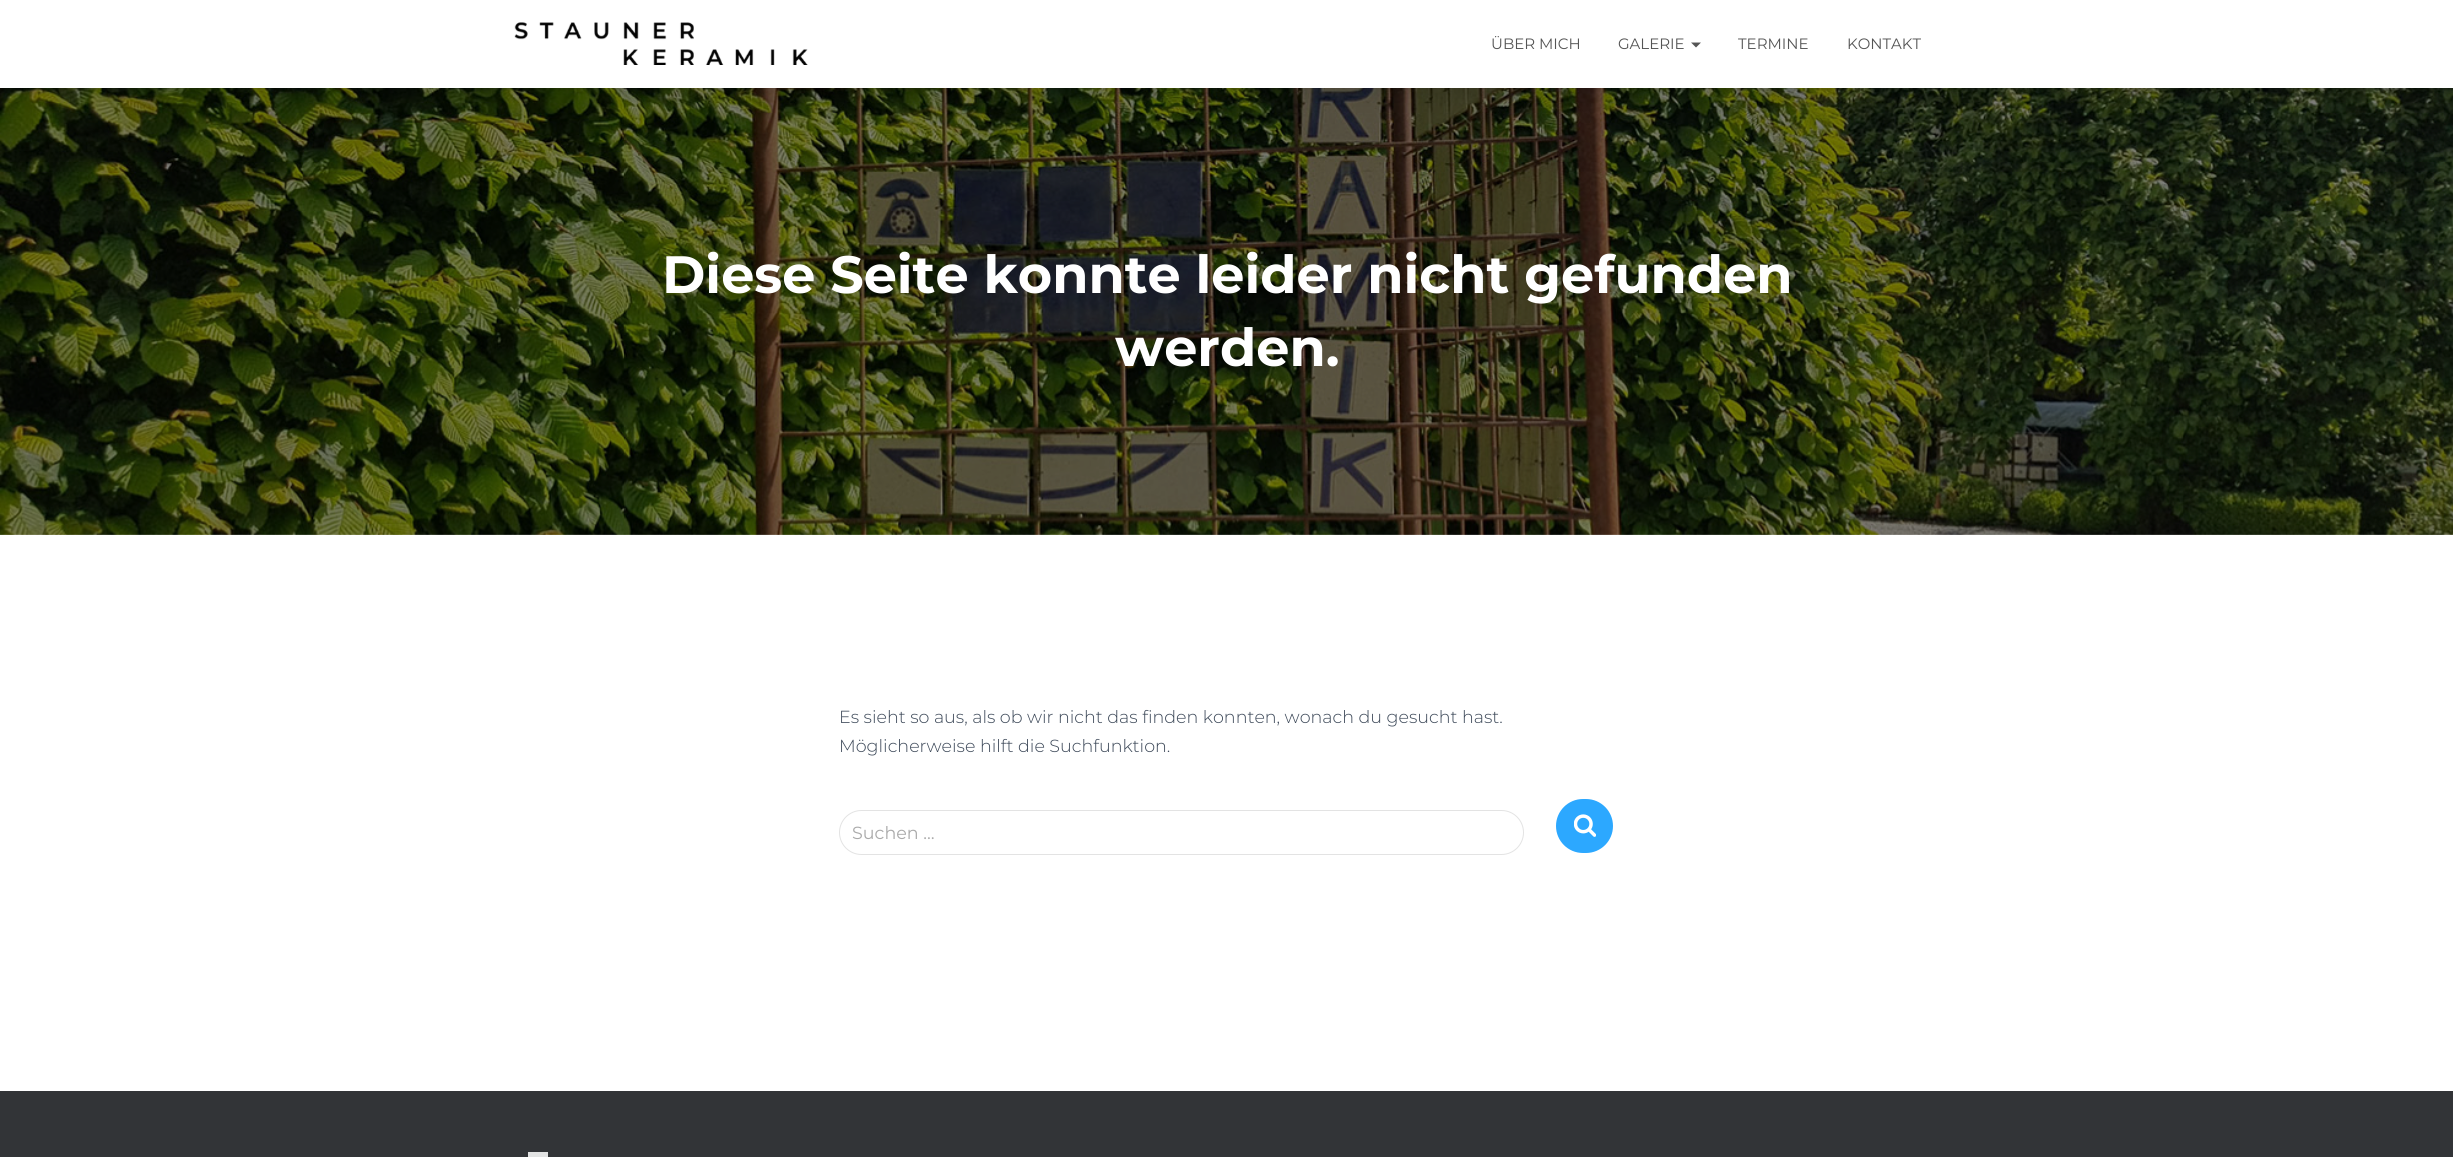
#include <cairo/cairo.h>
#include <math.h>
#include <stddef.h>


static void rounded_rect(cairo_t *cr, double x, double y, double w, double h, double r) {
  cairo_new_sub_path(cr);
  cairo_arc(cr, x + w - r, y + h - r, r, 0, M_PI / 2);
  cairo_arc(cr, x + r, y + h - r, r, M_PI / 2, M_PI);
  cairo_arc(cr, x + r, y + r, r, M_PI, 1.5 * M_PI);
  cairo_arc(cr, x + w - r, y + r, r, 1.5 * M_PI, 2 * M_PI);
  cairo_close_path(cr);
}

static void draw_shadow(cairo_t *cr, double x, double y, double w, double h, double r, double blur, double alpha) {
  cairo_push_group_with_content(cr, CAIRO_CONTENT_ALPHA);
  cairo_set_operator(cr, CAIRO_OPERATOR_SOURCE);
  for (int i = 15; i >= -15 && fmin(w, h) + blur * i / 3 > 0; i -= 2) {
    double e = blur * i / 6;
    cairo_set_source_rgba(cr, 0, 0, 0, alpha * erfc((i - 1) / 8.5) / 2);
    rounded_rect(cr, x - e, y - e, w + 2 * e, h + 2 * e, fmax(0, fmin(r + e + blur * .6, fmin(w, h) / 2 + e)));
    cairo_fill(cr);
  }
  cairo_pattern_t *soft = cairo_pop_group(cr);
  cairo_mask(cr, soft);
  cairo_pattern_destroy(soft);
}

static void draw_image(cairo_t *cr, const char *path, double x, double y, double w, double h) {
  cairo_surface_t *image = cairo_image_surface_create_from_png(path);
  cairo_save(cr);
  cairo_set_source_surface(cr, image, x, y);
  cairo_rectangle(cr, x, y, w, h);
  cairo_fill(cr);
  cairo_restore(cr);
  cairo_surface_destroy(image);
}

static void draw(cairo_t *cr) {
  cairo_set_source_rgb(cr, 1, 1, 1);
  cairo_paint(cr);
  draw_image(cr, "images/2.png", 0, 88, 2453, 447);
  cairo_set_source_rgb(cr, 0, 0, 0);
  draw_shadow(cr, 0, 0, 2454, 88, 0, 12.5, 0.15);
  cairo_set_source_rgb(cr, 1, 1, 1);
  cairo_rectangle(cr, 0, 0, 2453, 88);
  cairo_fill(cr);
  draw_image(cr, "images/1.png", 514, 22, 294, 43);
  cairo_set_source_rgb(cr, 85 / 255.0, 85 / 255.0, 85 / 255.0);
  cairo_new_path(cr);
  cairo_move_to(cr, 1691, 42.5);
  cairo_line_to(cr, 1701, 42.5);
  cairo_line_to(cr, 1696, 47.5);
  cairo_close_path(cr);
  cairo_fill(cr);
  rounded_rect(cr, 839.5, 810.5, 684, 44, 22);
  cairo_set_source_rgb(cr, 227 / 255.0, 227 / 255.0, 227 / 255.0);
  cairo_set_line_width(cr, 1);
  cairo_stroke(cr);
  cairo_set_source_rgb(cr, 44 / 255.0, 168 / 255.0, 1);
  rounded_rect(cr, 1556, 799, 57, 54, 27);
  cairo_fill(cr);
  draw_image(cr, "images/3.png", 1574, 814, 22, 23);
  cairo_set_source_rgb(cr, 50 / 255.0, 52 / 255.0, 55 / 255.0);
  cairo_rectangle(cr, 0, 1091, 2453, 66);
  cairo_fill(cr);
  cairo_set_source_rgb(cr, 226 / 255.0, 227 / 255.0, 227 / 255.0);
  cairo_rectangle(cr, 528, 1152, 20, 5);
  cairo_fill(cr);
  cairo_select_font_face(cr, "Montserrat", CAIRO_FONT_SLANT_NORMAL, CAIRO_FONT_WEIGHT_NORMAL);
  cairo_set_font_size(cr, 15);
  cairo_set_source_rgb(cr, 85 / 255.0, 85 / 255.0, 85 / 255.0);
  cairo_move_to(cr, 1491, 49);
  cairo_show_text(cr, "ÜBER MICH");
  cairo_move_to(cr, 1618, 49);
  cairo_show_text(cr, "GALERIE");
  cairo_move_to(cr, 1738, 49);
  cairo_show_text(cr, "TERMINE");
  cairo_move_to(cr, 1847, 49);
  cairo_show_text(cr, "KONTAKT");
  cairo_select_font_face(cr, "Montserrat", CAIRO_FONT_SLANT_NORMAL, CAIRO_FONT_WEIGHT_BOLD);
  cairo_set_font_size(cr, 52.5);
  cairo_set_source_rgb(cr, 1, 1, 1);
  cairo_move_to(cr, 662, 293);
  cairo_show_text(cr, "Diese Seite konnte leider nicht gefunden");
  cairo_move_to(cr, 1115, 366);
  cairo_show_text(cr, "werden.");
  cairo_select_font_face(cr, "Montserrat Light", CAIRO_FONT_SLANT_NORMAL, CAIRO_FONT_WEIGHT_NORMAL);
  cairo_set_font_size(cr, 17.5);
  cairo_set_source_rgb(cr, 60 / 255.0, 72 / 255.0, 88 / 255.0);
  cairo_move_to(cr, 839, 723);
  cairo_show_text(cr, "Es sieht so aus, als ob wir nicht das finden konnten, wonach du gesucht hast.");
  cairo_move_to(cr, 839, 752);
  cairo_show_text(cr, "Möglicherweise hilft die Suchfunktion.");
  cairo_select_font_face(cr, "Montserrat", CAIRO_FONT_SLANT_NORMAL, CAIRO_FONT_WEIGHT_NORMAL);
  cairo_set_source_rgb(cr, 170 / 255.0, 170 / 255.0, 170 / 255.0);
  cairo_move_to(cr, 852, 839);
  cairo_show_text(cr, "Suchen …");
}

int main(void) {
  cairo_surface_t *surface = cairo_image_surface_create(CAIRO_FORMAT_RGB24, 2453, 1157);
  cairo_t *cr = cairo_create(surface);
  cairo_font_options_t *options = cairo_font_options_create();
  cairo_font_options_set_hint_metrics(options, CAIRO_HINT_METRICS_OFF);
  cairo_font_options_set_hint_style(options, CAIRO_HINT_STYLE_NONE);
  cairo_set_font_options(cr, options);
  cairo_set_miter_limit(cr, 4);
  draw(cr);
  cairo_surface_write_to_png(surface, "out.png");
  cairo_font_options_destroy(options);
  cairo_destroy(cr);
  cairo_surface_destroy(surface);
  return 0;
}
